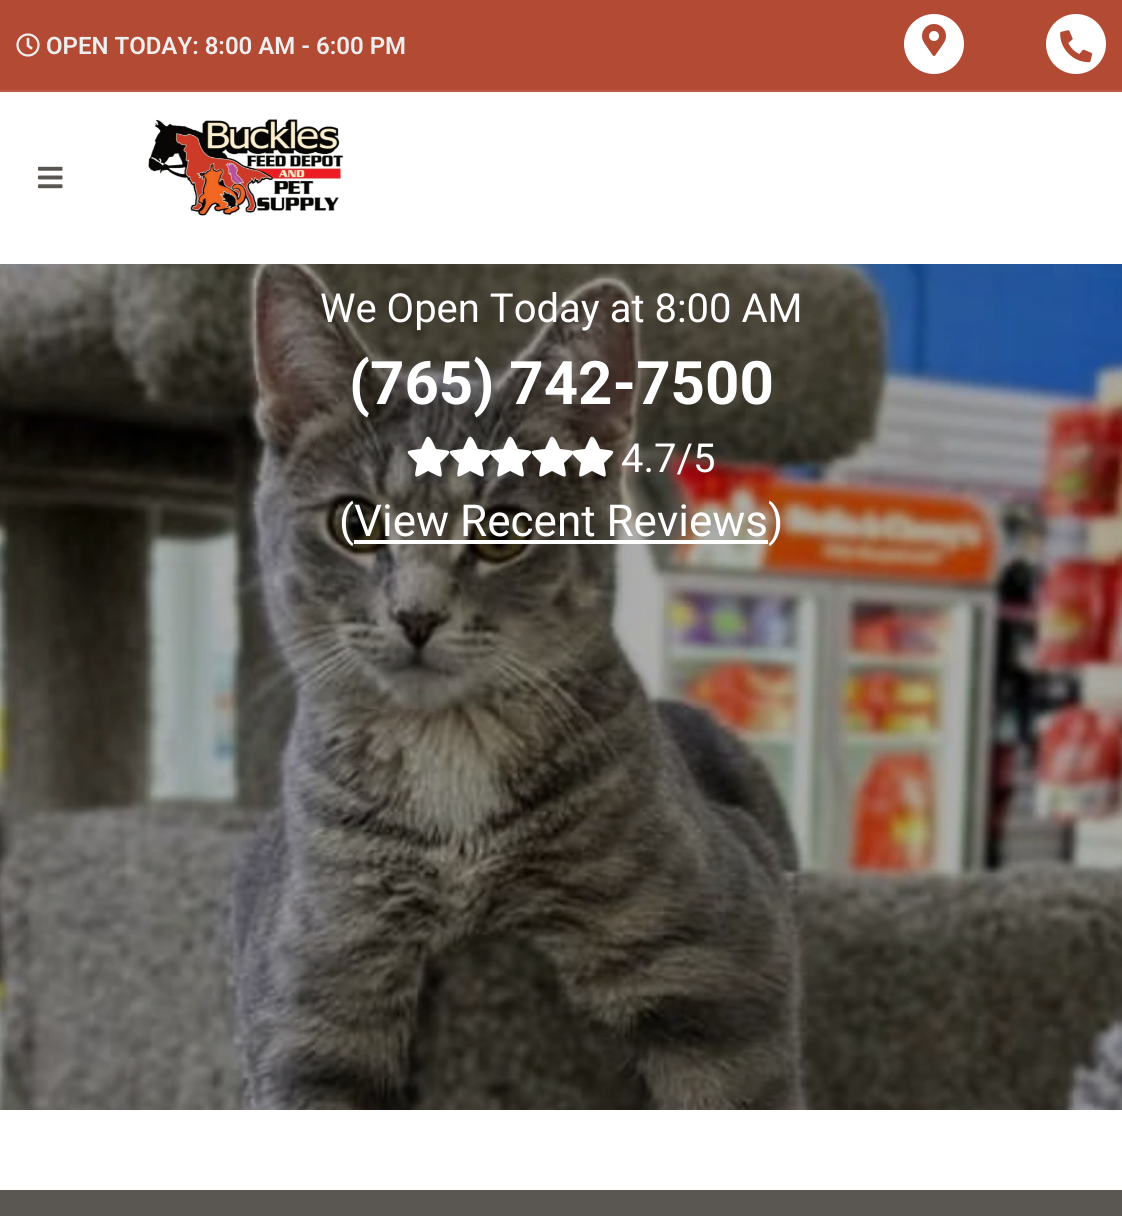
#include <cairo/cairo.h>
#include <math.h>
#include <stddef.h>


static void draw_image(cairo_t *cr, const char *path, double x, double y, double w, double h) {
  cairo_surface_t *image = cairo_image_surface_create_from_png(path);
  cairo_save(cr);
  cairo_set_source_surface(cr, image, x, y);
  cairo_rectangle(cr, x, y, w, h);
  cairo_fill(cr);
  cairo_restore(cr);
  cairo_surface_destroy(image);
}

static void draw(cairo_t *cr) {
  cairo_set_source_rgb(cr, 1, 1, 1);
  cairo_paint(cr);
  cairo_set_source_rgb(cr, 179 / 255.0, 74 / 255.0, 51 / 255.0);
  cairo_rectangle(cr, 0, 0, 1122, 90);
  cairo_fill(cr);
  cairo_set_source_rgb(cr, 187 / 255.0, 92 / 255.0, 71 / 255.0);
  cairo_rectangle(cr, 0, 90, 1122, 2);
  cairo_fill(cr);
  draw_image(cr, "images/1.png", 16, 33, 24, 24);
  cairo_set_source_rgb(cr, 1, 1, 1);
  cairo_arc(cr, 934, 44, 30, 0, 2 * M_PI);
  cairo_fill(cr);
  draw_image(cr, "images/2.png", 922, 24, 24, 32);
  cairo_arc(cr, 1076, 44, 30, 0, 2 * M_PI);
  cairo_fill(cr);
  draw_image(cr, "images/3.png", 1060, 30, 33, 33);
  draw_image(cr, "images/4.png", 38, 166, 25, 23);
  draw_image(cr, "images/5.png", 148, 119, 196, 97);
  draw_image(cr, "images/6.png", 0, 264, 1122, 846);
  cairo_new_path(cr);
  cairo_move_to(cr, 426, 438);
  cairo_curve_to(cr, 430, 432, 435, 448, 436, 449);
  cairo_curve_to(cr, 453, 451, 453, 450, 440, 463);
  cairo_curve_to(cr, 443, 480, 444, 479, 428, 471);
  cairo_curve_to(cr, 413, 479, 414, 480, 417, 463);
  cairo_curve_to(cr, 404, 450, 404, 451, 421, 449);
  cairo_close_path(cr);
  cairo_fill(cr);
  cairo_new_path(cr);
  cairo_move_to(cr, 468, 438);
  cairo_curve_to(cr, 472, 432, 477, 448, 478, 449);
  cairo_curve_to(cr, 495, 451, 495, 450, 482, 463);
  cairo_curve_to(cr, 485, 480, 486, 479, 470, 471);
  cairo_curve_to(cr, 455, 479, 456, 480, 459, 463);
  cairo_curve_to(cr, 446, 450, 446, 451, 463, 449);
  cairo_close_path(cr);
  cairo_fill(cr);
  cairo_new_path(cr);
  cairo_move_to(cr, 508, 438);
  cairo_curve_to(cr, 512, 432, 517, 448, 518, 449);
  cairo_curve_to(cr, 535, 451, 535, 450, 522, 463);
  cairo_curve_to(cr, 525, 480, 526, 479, 510, 471);
  cairo_curve_to(cr, 495, 479, 496, 480, 499, 463);
  cairo_curve_to(cr, 486, 450, 486, 451, 503, 449);
  cairo_close_path(cr);
  cairo_fill(cr);
  cairo_new_path(cr);
  cairo_move_to(cr, 550, 438);
  cairo_curve_to(cr, 554, 432, 559, 448, 560, 449);
  cairo_curve_to(cr, 577, 451, 577, 450, 564, 463);
  cairo_curve_to(cr, 567, 480, 568, 479, 552, 471);
  cairo_curve_to(cr, 537, 479, 538, 480, 541, 463);
  cairo_curve_to(cr, 528, 450, 528, 451, 545, 449);
  cairo_close_path(cr);
  cairo_fill(cr);
  cairo_new_path(cr);
  cairo_move_to(cr, 590, 438);
  cairo_curve_to(cr, 594, 432, 599, 448, 600, 449);
  cairo_curve_to(cr, 617, 451, 617, 450, 604, 463);
  cairo_curve_to(cr, 607, 480, 608, 479, 592, 471);
  cairo_curve_to(cr, 577, 479, 578, 480, 581, 463);
  cairo_curve_to(cr, 568, 450, 568, 451, 585, 449);
  cairo_close_path(cr);
  cairo_fill(cr);
  cairo_rectangle(cr, 354, 540, 414, 4);
  cairo_fill(cr);
  cairo_set_source_rgb(cr, 90 / 255.0, 86 / 255.0, 81 / 255.0);
  cairo_rectangle(cr, 0, 1190, 1122, 26);
  cairo_fill(cr);
  cairo_select_font_face(cr, "Roboto SemiBold", CAIRO_FONT_SLANT_NORMAL, CAIRO_FONT_WEIGHT_NORMAL);
  cairo_set_font_size(cr, 24);
  cairo_set_source_rgb(cr, 238 / 255.0, 238 / 255.0, 238 / 255.0);
  cairo_move_to(cr, 46, 54);
  cairo_show_text(cr, "OPEN TODAY: 8:00 AM - 6:00 PM");
  cairo_select_font_face(cr, "Roboto", CAIRO_FONT_SLANT_NORMAL, CAIRO_FONT_WEIGHT_NORMAL);
  cairo_set_font_size(cr, 40);
  cairo_set_source_rgb(cr, 1, 1, 1);
  cairo_move_to(cr, 320, 322);
  cairo_show_text(cr, "We Open Today at 8:00 AM");
  cairo_select_font_face(cr, "Roboto", CAIRO_FONT_SLANT_NORMAL, CAIRO_FONT_WEIGHT_BOLD);
  cairo_set_font_size(cr, 60);
  cairo_move_to(cr, 349, 404);
  cairo_show_text(cr, "(765) 742-7500");
  cairo_select_font_face(cr, "Roboto", CAIRO_FONT_SLANT_NORMAL, CAIRO_FONT_WEIGHT_NORMAL);
  cairo_set_font_size(cr, 40);
  cairo_move_to(cr, 621, 472);
  cairo_show_text(cr, "4.7/5");
  cairo_set_font_size(cr, 44);
  cairo_move_to(cr, 339, 536);
  cairo_show_text(cr, "(View Recent Reviews)");
}

int main(void) {
  cairo_surface_t *surface = cairo_image_surface_create(CAIRO_FORMAT_RGB24, 1122, 1216);
  cairo_t *cr = cairo_create(surface);
  cairo_font_options_t *options = cairo_font_options_create();
  cairo_font_options_set_hint_metrics(options, CAIRO_HINT_METRICS_OFF);
  cairo_font_options_set_hint_style(options, CAIRO_HINT_STYLE_NONE);
  cairo_set_font_options(cr, options);
  cairo_set_miter_limit(cr, 4);
  draw(cr);
  cairo_surface_write_to_png(surface, "out.png");
  cairo_font_options_destroy(options);
  cairo_destroy(cr);
  cairo_surface_destroy(surface);
  return 0;
}
